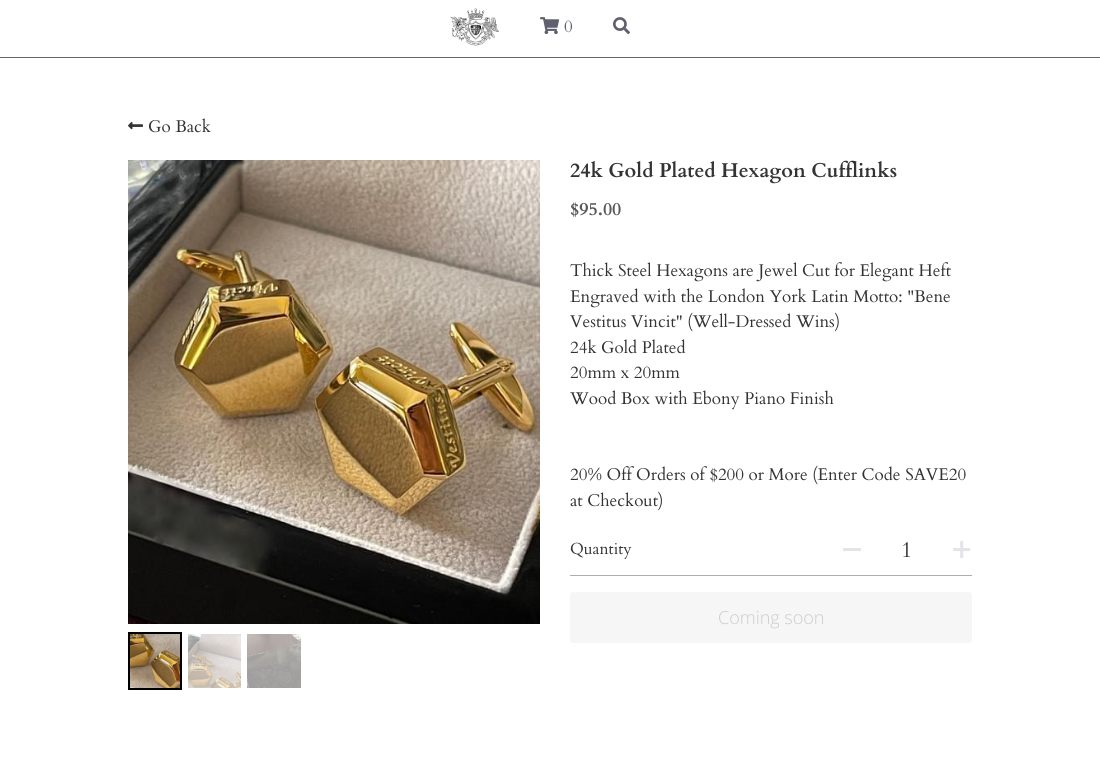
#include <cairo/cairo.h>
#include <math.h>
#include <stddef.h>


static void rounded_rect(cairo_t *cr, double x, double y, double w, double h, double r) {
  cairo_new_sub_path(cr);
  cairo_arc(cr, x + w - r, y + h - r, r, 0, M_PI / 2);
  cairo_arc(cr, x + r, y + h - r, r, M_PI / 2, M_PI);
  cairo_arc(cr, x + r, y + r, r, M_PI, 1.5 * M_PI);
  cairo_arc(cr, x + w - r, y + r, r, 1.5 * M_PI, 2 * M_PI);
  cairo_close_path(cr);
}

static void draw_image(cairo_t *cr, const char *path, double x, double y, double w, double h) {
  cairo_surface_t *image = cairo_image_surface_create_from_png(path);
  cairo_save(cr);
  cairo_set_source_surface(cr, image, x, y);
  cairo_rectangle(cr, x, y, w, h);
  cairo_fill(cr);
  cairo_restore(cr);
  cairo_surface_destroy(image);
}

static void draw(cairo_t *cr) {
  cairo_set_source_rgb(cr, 1, 1, 1);
  cairo_paint(cr);
  cairo_set_source_rgb(cr, 102 / 255.0, 102 / 255.0, 102 / 255.0);
  cairo_rectangle(cr, 0, 57, 1100, 1);
  cairo_fill(cr);
  draw_image(cr, "images/1.png", 450, 8, 50, 38);
  draw_image(cr, "images/2.png", 540, 17, 20, 18);
  draw_image(cr, "images/3.png", 613, 17, 17, 18);
  draw_image(cr, "images/4.png", 128, 122, 15, 8);
  draw_image(cr, "images/5.png", 128, 160, 412, 464);
  cairo_rectangle(cr, 129, 633, 52, 56);
  cairo_set_source_rgb(cr, 0, 0, 0);
  cairo_stroke(cr);
  draw_image(cr, "images/6.png", 130, 634, 50, 54);
  draw_image(cr, "images/7.png", 188, 634, 53, 54);
  draw_image(cr, "images/8.png", 247, 634, 54, 54);
  cairo_set_source_rgb(cr, 169 / 255.0, 174 / 255.0, 178 / 255.0);
  cairo_rectangle(cr, 570, 575, 402, 1);
  cairo_fill(cr);
  cairo_set_source_rgb(cr, 226 / 255.0, 228 / 255.0, 231 / 255.0);
  cairo_rectangle(cr, 843, 548, 18, 3);
  cairo_fill(cr);
  draw_image(cr, "images/9.png", 953, 540, 18, 19);
  cairo_set_source_rgb(cr, 246 / 255.0, 246 / 255.0, 246 / 255.0);
  rounded_rect(cr, 570, 592, 402, 51, 3);
  cairo_fill(cr);
  cairo_select_font_face(cr, "Cardo", CAIRO_FONT_SLANT_NORMAL, CAIRO_FONT_WEIGHT_NORMAL);
  cairo_set_font_size(cr, 17);
  cairo_set_source_rgb(cr, 96 / 255.0, 95 / 255.0, 109 / 255.0);
  cairo_move_to(cr, 564, 32);
  cairo_show_text(cr, "0");
  cairo_set_source_rgb(cr, 51 / 255.0, 51 / 255.0, 51 / 255.0);
  cairo_move_to(cr, 148, 132);
  cairo_show_text(cr, "Go Back");
  cairo_select_font_face(cr, "Cardo", CAIRO_FONT_SLANT_NORMAL, CAIRO_FONT_WEIGHT_BOLD);
  cairo_set_font_size(cr, 20);
  cairo_move_to(cr, 570, 177);
  cairo_show_text(cr, "24k Gold Plated Hexagon Cufflinks");
  cairo_set_font_size(cr, 18);
  cairo_set_source_rgb(cr, 89 / 255.0, 89 / 255.0, 89 / 255.0);
  cairo_move_to(cr, 570, 215);
  cairo_show_text(cr, "$95.00");
  cairo_select_font_face(cr, "Cardo", CAIRO_FONT_SLANT_NORMAL, CAIRO_FONT_WEIGHT_NORMAL);
  cairo_set_font_size(cr, 17);
  cairo_set_source_rgb(cr, 51 / 255.0, 51 / 255.0, 51 / 255.0);
  cairo_move_to(cr, 570, 276);
  cairo_show_text(cr, "Thick Steel Hexagons are Jewel Cut for Elegant Heft");
  cairo_move_to(cr, 570, 302);
  cairo_show_text(cr, "Engraved with the London York Latin Motto: \"Bene");
  cairo_move_to(cr, 570, 327);
  cairo_show_text(cr, "Vestitus Vincit\" (Well-Dressed Wins)");
  cairo_move_to(cr, 570, 353);
  cairo_show_text(cr, "24k Gold Plated");
  cairo_move_to(cr, 570, 378);
  cairo_show_text(cr, "20mm x 20mm");
  cairo_move_to(cr, 570, 404);
  cairo_show_text(cr, "Wood Box with Ebony Piano Finish");
  cairo_move_to(cr, 570, 480);
  cairo_show_text(cr, "20% Off Orders of $200 or More (Enter Code SAVE20");
  cairo_move_to(cr, 570, 506);
  cairo_show_text(cr, "at Checkout)");
  cairo_set_font_size(cr, 16);
  cairo_move_to(cr, 570, 554);
  cairo_show_text(cr, "Quantity");
  cairo_set_font_size(cr, 22);
  cairo_move_to(cr, 901, 557);
  cairo_show_text(cr, "1");
  cairo_select_font_face(cr, "Open Sans Light", CAIRO_FONT_SLANT_NORMAL, CAIRO_FONT_WEIGHT_NORMAL);
  cairo_set_font_size(cr, 18);
  cairo_set_source_rgb(cr, 204 / 255.0, 204 / 255.0, 204 / 255.0);
  cairo_move_to(cr, 718, 624);
  cairo_show_text(cr, "Coming soon");
}

int main(void) {
  cairo_surface_t *surface = cairo_image_surface_create(CAIRO_FORMAT_RGB24, 1100, 772);
  cairo_t *cr = cairo_create(surface);
  cairo_font_options_t *options = cairo_font_options_create();
  cairo_font_options_set_hint_metrics(options, CAIRO_HINT_METRICS_OFF);
  cairo_font_options_set_hint_style(options, CAIRO_HINT_STYLE_NONE);
  cairo_set_font_options(cr, options);
  cairo_set_miter_limit(cr, 4);
  draw(cr);
  cairo_surface_write_to_png(surface, "out.png");
  cairo_font_options_destroy(options);
  cairo_destroy(cr);
  cairo_surface_destroy(surface);
  return 0;
}
